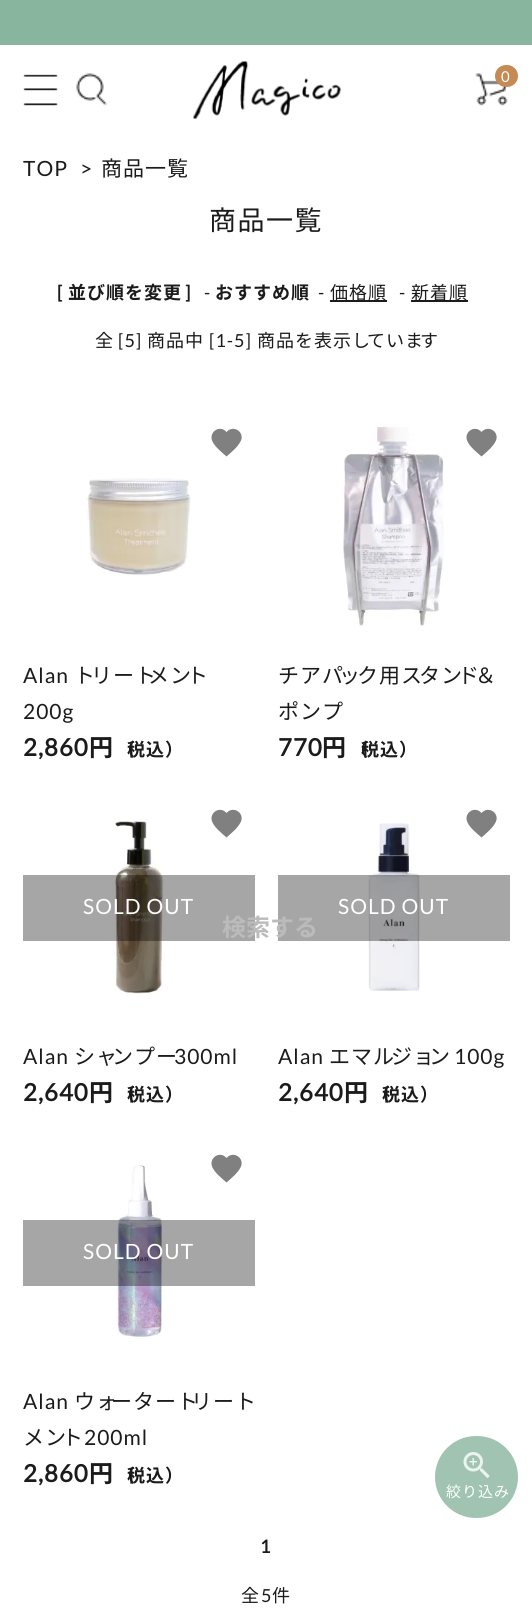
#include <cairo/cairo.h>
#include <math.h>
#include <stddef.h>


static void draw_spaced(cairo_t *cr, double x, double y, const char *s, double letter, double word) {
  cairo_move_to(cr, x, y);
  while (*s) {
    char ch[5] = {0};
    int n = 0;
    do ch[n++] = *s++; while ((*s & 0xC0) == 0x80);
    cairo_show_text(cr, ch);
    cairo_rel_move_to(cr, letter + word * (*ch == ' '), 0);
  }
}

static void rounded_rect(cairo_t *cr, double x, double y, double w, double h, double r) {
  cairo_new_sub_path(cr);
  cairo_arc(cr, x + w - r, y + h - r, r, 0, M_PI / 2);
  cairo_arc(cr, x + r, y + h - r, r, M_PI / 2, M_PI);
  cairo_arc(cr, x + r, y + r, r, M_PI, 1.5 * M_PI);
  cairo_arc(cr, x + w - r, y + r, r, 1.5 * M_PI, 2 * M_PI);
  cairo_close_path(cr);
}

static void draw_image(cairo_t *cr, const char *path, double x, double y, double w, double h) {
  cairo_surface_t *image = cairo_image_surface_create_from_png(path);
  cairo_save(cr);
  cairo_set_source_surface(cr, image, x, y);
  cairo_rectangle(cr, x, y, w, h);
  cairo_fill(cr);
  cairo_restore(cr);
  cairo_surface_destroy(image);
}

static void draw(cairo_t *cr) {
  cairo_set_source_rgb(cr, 1, 1, 1);
  cairo_paint(cr);
  cairo_set_source_rgb(cr, 136 / 255.0, 181 / 255.0, 158 / 255.0);
  cairo_rectangle(cr, 0, 0, 532, 45);
  cairo_fill(cr);
  draw_image(cr, "images/1.png", 23, 74, 35, 32);
  draw_image(cr, "images/2.png", 76, 73, 31, 33);
  draw_image(cr, "images/3.png", 193, 61, 148, 58);
  draw_image(cr, "images/4.png", 475, 73, 33, 33);
  cairo_set_source_rgb(cr, 198 / 255.0, 138 / 255.0, 85 / 255.0);
  rounded_rect(cr, 495, 65, 23, 22, 11);
  cairo_fill(cr);
  cairo_set_source_rgb(cr, 27 / 255.0, 27 / 255.0, 27 / 255.0);
  cairo_rectangle(cr, 330, 300, 57, 2);
  cairo_fill(cr);
  cairo_rectangle(cr, 411, 300, 57, 2);
  cairo_fill(cr);
  cairo_set_source_rgb(cr, 128 / 255.0, 128 / 255.0, 128 / 255.0);
  cairo_new_path(cr);
  cairo_move_to(cr, 226.5, 456.5);
  cairo_curve_to(cr, 222, 452.5, 215, 447, 212.5, 441.5);
  cairo_curve_to(cr, 208, 432.5, 219.5, 424, 226.5, 432);
  cairo_curve_to(cr, 233, 424.5, 244.5, 431.5, 241, 440.5);
  cairo_curve_to(cr, 238, 447, 231.5, 452, 226.5, 456.5);
  cairo_close_path(cr);
  cairo_fill(cr);
  draw_image(cr, "images/5.png", 87, 478, 104, 98);
  cairo_new_path(cr);
  cairo_move_to(cr, 481.5, 456.5);
  cairo_curve_to(cr, 477, 452.5, 470, 447, 467.5, 441.5);
  cairo_curve_to(cr, 463, 432.5, 474.5, 424, 481.5, 432);
  cairo_curve_to(cr, 488, 424.5, 499.5, 431.5, 496, 440.5);
  cairo_curve_to(cr, 493, 447, 486.5, 452, 481.5, 456.5);
  cairo_close_path(cr);
  cairo_fill(cr);
  draw_image(cr, "images/6.png", 343, 426, 101, 202);
  cairo_new_path(cr);
  cairo_move_to(cr, 226.5, 837.5);
  cairo_curve_to(cr, 222, 833.5, 215, 828, 212.5, 822.5);
  cairo_curve_to(cr, 208, 813.5, 219.5, 805, 226.5, 813);
  cairo_curve_to(cr, 233, 805.5, 244.5, 812.5, 241, 821.5);
  cairo_curve_to(cr, 238, 828, 231.5, 833, 226.5, 837.5);
  cairo_close_path(cr);
  cairo_fill(cr);
  draw_image(cr, "images/7.png", 112, 819, 53, 176);
  cairo_set_source_rgba(cr, 0, 0, 0, 0.35);
  cairo_rectangle(cr, 23, 875, 232, 66);
  cairo_fill(cr);
  cairo_set_source_rgb(cr, 128 / 255.0, 128 / 255.0, 128 / 255.0);
  cairo_new_path(cr);
  cairo_move_to(cr, 481.5, 837.5);
  cairo_curve_to(cr, 477, 833.5, 470, 828, 467.5, 822.5);
  cairo_curve_to(cr, 463, 813.5, 474.5, 805, 481.5, 813);
  cairo_curve_to(cr, 488, 805.5, 499.5, 812.5, 496, 821.5);
  cairo_curve_to(cr, 493, 828, 486.5, 833, 481.5, 837.5);
  cairo_close_path(cr);
  cairo_fill(cr);
  draw_image(cr, "images/8.png", 368, 823, 52, 168);
  cairo_set_source_rgba(cr, 0, 0, 0, 0.35);
  cairo_rectangle(cr, 278, 875, 232, 66);
  cairo_fill(cr);
  cairo_set_source_rgb(cr, 128 / 255.0, 128 / 255.0, 128 / 255.0);
  cairo_new_path(cr);
  cairo_move_to(cr, 226.5, 1182.5);
  cairo_curve_to(cr, 222, 1178.5, 215, 1173, 212.5, 1167.5);
  cairo_curve_to(cr, 208, 1158.5, 219.5, 1150, 226.5, 1158);
  cairo_curve_to(cr, 233, 1150.5, 244.5, 1157.5, 241, 1166.5);
  cairo_curve_to(cr, 238, 1173, 231.5, 1178, 226.5, 1182.5);
  cairo_close_path(cr);
  cairo_fill(cr);
  draw_image(cr, "images/9.png", 116, 1165, 47, 174);
  cairo_set_source_rgba(cr, 0, 0, 0, 0.35);
  cairo_rectangle(cr, 23, 1220, 232, 66);
  cairo_fill(cr);
  cairo_set_source_rgb(cr, 160 / 255.0, 196 / 255.0, 177 / 255.0);
  rounded_rect(cr, 435, 1436, 83, 82, 41);
  cairo_fill(cr);
  draw_image(cr, "images/10.png", 463, 1452, 27, 26);
  cairo_select_font_face(cr, "Lato", CAIRO_FONT_SLANT_NORMAL, CAIRO_FONT_WEIGHT_NORMAL);
  cairo_set_font_size(cr, 15);
  cairo_set_source_rgb(cr, 1, 1, 1);
  draw_spaced(cr, 501, 82, "0", 1, 0);
  cairo_set_font_size(cr, 21);
  cairo_set_source_rgb(cr, 27 / 255.0, 27 / 255.0, 27 / 255.0);
  draw_spaced(cr, 23, 176, "TOP", 1, 0);
  draw_spaced(cr, 80, 176, ">", 1, 0);
  cairo_select_font_face(cr, "Noto Sans JP", CAIRO_FONT_SLANT_NORMAL, CAIRO_FONT_WEIGHT_NORMAL);
  draw_spaced(cr, 101, 176, "商品一覧", 1, 0);
  cairo_set_font_size(cr, 27);
  draw_spaced(cr, 209, 230, "商品一覧", 1.5, 0);
  cairo_select_font_face(cr, "Lato", CAIRO_FONT_SLANT_NORMAL, CAIRO_FONT_WEIGHT_BOLD);
  cairo_set_font_size(cr, 18);
  draw_spaced(cr, 57, 299, "[", 1, 0);
  cairo_select_font_face(cr, "Noto Sans JP", CAIRO_FONT_SLANT_NORMAL, CAIRO_FONT_WEIGHT_BOLD);
  draw_spaced(cr, 68, 299, "並び順を変更", 1, 0);
  cairo_select_font_face(cr, "Lato", CAIRO_FONT_SLANT_NORMAL, CAIRO_FONT_WEIGHT_BOLD);
  draw_spaced(cr, 185, 299, "]", 1, 0);
  cairo_select_font_face(cr, "Lato", CAIRO_FONT_SLANT_NORMAL, CAIRO_FONT_WEIGHT_NORMAL);
  draw_spaced(cr, 204, 299, "-", 1, 0);
  cairo_select_font_face(cr, "Noto Sans JP", CAIRO_FONT_SLANT_NORMAL, CAIRO_FONT_WEIGHT_BOLD);
  draw_spaced(cr, 215, 299, "おすすめ順", 1, 0);
  cairo_select_font_face(cr, "Lato", CAIRO_FONT_SLANT_NORMAL, CAIRO_FONT_WEIGHT_NORMAL);
  draw_spaced(cr, 318, 299, "-", 1, 0);
  cairo_select_font_face(cr, "Noto Sans JP", CAIRO_FONT_SLANT_NORMAL, CAIRO_FONT_WEIGHT_NORMAL);
  draw_spaced(cr, 330, 299, "価格順", 1, 0);
  cairo_select_font_face(cr, "Lato", CAIRO_FONT_SLANT_NORMAL, CAIRO_FONT_WEIGHT_NORMAL);
  draw_spaced(cr, 399, 299, "-", 1, 0);
  cairo_select_font_face(cr, "Noto Sans JP", CAIRO_FONT_SLANT_NORMAL, CAIRO_FONT_WEIGHT_NORMAL);
  draw_spaced(cr, 411, 299, "新着順", 1, 0);
  draw_spaced(cr, 95, 347, "全", 1, 0);
  cairo_select_font_face(cr, "Lato", CAIRO_FONT_SLANT_NORMAL, CAIRO_FONT_WEIGHT_NORMAL);
  draw_spaced(cr, 118, 347, "[5]", 1, 0);
  cairo_select_font_face(cr, "Noto Sans JP", CAIRO_FONT_SLANT_NORMAL, CAIRO_FONT_WEIGHT_NORMAL);
  draw_spaced(cr, 147, 347, "商品中", 1, 0);
  cairo_select_font_face(cr, "Lato", CAIRO_FONT_SLANT_NORMAL, CAIRO_FONT_WEIGHT_NORMAL);
  draw_spaced(cr, 209, 347, "[1-5]", 1, 0);
  cairo_select_font_face(cr, "Noto Sans JP", CAIRO_FONT_SLANT_NORMAL, CAIRO_FONT_WEIGHT_NORMAL);
  draw_spaced(cr, 257, 347, "商品を表示し", 1, 0);
  draw_spaced(cr, 367, 347, "ていま", 1, 0);
  draw_spaced(cr, 420, 347, "す", 1, 0);
  cairo_select_font_face(cr, "Lato", CAIRO_FONT_SLANT_NORMAL, CAIRO_FONT_WEIGHT_NORMAL);
  cairo_set_font_size(cr, 21);
  draw_spaced(cr, 23, 683, "Alan", 1, 0);
  cairo_select_font_face(cr, "Noto Sans JP", CAIRO_FONT_SLANT_NORMAL, CAIRO_FONT_WEIGHT_NORMAL);
  draw_spaced(cr, 74, 683, "ト", 1, 0);
  draw_spaced(cr, 91, 683, "リート", 1, 0);
  draw_spaced(cr, 148, 683, "メン", 1, 0);
  draw_spaced(cr, 187, 683, "ト", 1, 0);
  cairo_select_font_face(cr, "Lato", CAIRO_FONT_SLANT_NORMAL, CAIRO_FONT_WEIGHT_NORMAL);
  draw_spaced(cr, 23, 719, "200g", 1, 0);
  cairo_select_font_face(cr, "Lato", CAIRO_FONT_SLANT_NORMAL, CAIRO_FONT_WEIGHT_BOLD);
  cairo_set_font_size(cr, 24);
  draw_spaced(cr, 23, 756, "2,860", 1, 0);
  cairo_select_font_face(cr, "Noto Sans JP", CAIRO_FONT_SLANT_NORMAL, CAIRO_FONT_WEIGHT_BOLD);
  draw_spaced(cr, 89, 756, "円", 1, 0);
  cairo_set_font_size(cr, 18);
  draw_spaced(cr, 117, 756, "（", 1, 0);
  draw_spaced(cr, 127, 756, "税込）", 1, 0);
  cairo_select_font_face(cr, "Noto Sans JP", CAIRO_FONT_SLANT_NORMAL, CAIRO_FONT_WEIGHT_NORMAL);
  cairo_set_font_size(cr, 21);
  draw_spaced(cr, 278, 683, "チアパ", 1, 0);
  draw_spaced(cr, 339, 683, "ッ", 1, 0);
  draw_spaced(cr, 357, 683, "ク用ス", 1, 0);
  draw_spaced(cr, 419, 683, "タン", 1, 0);
  draw_spaced(cr, 458, 683, "ド", 1, 0);
  draw_spaced(cr, 475, 683, "＆", 1, 0);
  draw_spaced(cr, 278, 719, "ポンプ", 1, 0);
  cairo_select_font_face(cr, "Lato", CAIRO_FONT_SLANT_NORMAL, CAIRO_FONT_WEIGHT_BOLD);
  cairo_set_font_size(cr, 24);
  draw_spaced(cr, 278, 756, "770", 1, 0);
  cairo_select_font_face(cr, "Noto Sans JP", CAIRO_FONT_SLANT_NORMAL, CAIRO_FONT_WEIGHT_BOLD);
  draw_spaced(cr, 322, 756, "円", 1, 0);
  cairo_set_font_size(cr, 18);
  draw_spaced(cr, 350, 756, "（", 1, 0);
  draw_spaced(cr, 361, 756, "税込）", 1, 0);
  cairo_select_font_face(cr, "Lato", CAIRO_FONT_SLANT_NORMAL, CAIRO_FONT_WEIGHT_NORMAL);
  cairo_set_font_size(cr, 21);
  cairo_set_source_rgb(cr, 1, 1, 1);
  draw_spaced(cr, 83, 914, "SOLD OUT", 1, 0);
  cairo_set_source_rgb(cr, 27 / 255.0, 27 / 255.0, 27 / 255.0);
  draw_spaced(cr, 23, 1064, "Alan", 1, 0);
  cairo_select_font_face(cr, "Noto Sans JP", CAIRO_FONT_SLANT_NORMAL, CAIRO_FONT_WEIGHT_NORMAL);
  draw_spaced(cr, 74, 1064, "シャ", 1, 0);
  draw_spaced(cr, 112, 1064, "ンプー", 1, 0);
  cairo_select_font_face(cr, "Lato", CAIRO_FONT_SLANT_NORMAL, CAIRO_FONT_WEIGHT_NORMAL);
  draw_spaced(cr, 174, 1064, "300ml", 1, 0);
  cairo_select_font_face(cr, "Lato", CAIRO_FONT_SLANT_NORMAL, CAIRO_FONT_WEIGHT_BOLD);
  cairo_set_font_size(cr, 24);
  draw_spaced(cr, 23, 1101, "2,640", 1, 0);
  cairo_select_font_face(cr, "Noto Sans JP", CAIRO_FONT_SLANT_NORMAL, CAIRO_FONT_WEIGHT_BOLD);
  draw_spaced(cr, 89, 1101, "円", 1, 0);
  cairo_set_font_size(cr, 18);
  draw_spaced(cr, 117, 1101, "（", 1, 0);
  draw_spaced(cr, 127, 1101, "税込）", 1, 0);
  cairo_select_font_face(cr, "Lato", CAIRO_FONT_SLANT_NORMAL, CAIRO_FONT_WEIGHT_NORMAL);
  cairo_set_font_size(cr, 21);
  cairo_set_source_rgb(cr, 1, 1, 1);
  draw_spaced(cr, 338, 914, "SOLD OUT", 1, 0);
  cairo_set_source_rgb(cr, 27 / 255.0, 27 / 255.0, 27 / 255.0);
  draw_spaced(cr, 278, 1064, "Alan", 1, 0);
  cairo_select_font_face(cr, "Noto Sans JP", CAIRO_FONT_SLANT_NORMAL, CAIRO_FONT_WEIGHT_NORMAL);
  draw_spaced(cr, 329, 1064, "エマル", 1, 0);
  draw_spaced(cr, 391, 1064, "ジョ", 1, 0);
  draw_spaced(cr, 429, 1064, "ン", 1, 0);
  cairo_select_font_face(cr, "Lato", CAIRO_FONT_SLANT_NORMAL, CAIRO_FONT_WEIGHT_NORMAL);
  draw_spaced(cr, 454, 1064, "100g", 1, 0);
  cairo_select_font_face(cr, "Lato", CAIRO_FONT_SLANT_NORMAL, CAIRO_FONT_WEIGHT_BOLD);
  cairo_set_font_size(cr, 24);
  draw_spaced(cr, 278, 1101, "2,640", 1, 0);
  cairo_select_font_face(cr, "Noto Sans JP", CAIRO_FONT_SLANT_NORMAL, CAIRO_FONT_WEIGHT_BOLD);
  draw_spaced(cr, 344, 1101, "円", 1, 0);
  cairo_set_font_size(cr, 18);
  draw_spaced(cr, 372, 1101, "（", 1, 0);
  draw_spaced(cr, 382, 1101, "税込）", 1, 0);
  cairo_select_font_face(cr, "Lato", CAIRO_FONT_SLANT_NORMAL, CAIRO_FONT_WEIGHT_NORMAL);
  cairo_set_font_size(cr, 21);
  cairo_set_source_rgb(cr, 1, 1, 1);
  draw_spaced(cr, 83, 1259, "SOLD OUT", 1, 0);
  cairo_set_source_rgb(cr, 27 / 255.0, 27 / 255.0, 27 / 255.0);
  draw_spaced(cr, 23, 1409, "Alan", 1, 0);
  cairo_select_font_face(cr, "Noto Sans JP", CAIRO_FONT_SLANT_NORMAL, CAIRO_FONT_WEIGHT_NORMAL);
  draw_spaced(cr, 74, 1409, "ウォ", 1, 0);
  draw_spaced(cr, 111, 1409, "ータート", 1, 0);
  draw_spaced(cr, 191, 1409, "リート", 1, 0);
  draw_spaced(cr, 23, 1445, "メン", 1, 0);
  draw_spaced(cr, 62, 1445, "ト", 1, 0);
  cairo_select_font_face(cr, "Lato", CAIRO_FONT_SLANT_NORMAL, CAIRO_FONT_WEIGHT_NORMAL);
  draw_spaced(cr, 84, 1445, "200ml", 1, 0);
  cairo_select_font_face(cr, "Lato", CAIRO_FONT_SLANT_NORMAL, CAIRO_FONT_WEIGHT_BOLD);
  cairo_set_font_size(cr, 24);
  draw_spaced(cr, 23, 1482, "2,860", 1, 0);
  cairo_select_font_face(cr, "Noto Sans JP", CAIRO_FONT_SLANT_NORMAL, CAIRO_FONT_WEIGHT_BOLD);
  draw_spaced(cr, 89, 1482, "円", 1, 0);
  cairo_set_font_size(cr, 18);
  draw_spaced(cr, 117, 1482, "（", 1, 0);
  draw_spaced(cr, 127, 1482, "税込）", 1, 0);
  cairo_set_font_size(cr, 24);
  cairo_set_source_rgb(cr, 187 / 255.0, 187 / 255.0, 187 / 255.0);
  cairo_move_to(cr, 222, 936);
  cairo_show_text(cr, "検索する");
  cairo_select_font_face(cr, "Noto Sans JP", CAIRO_FONT_SLANT_NORMAL, CAIRO_FONT_WEIGHT_NORMAL);
  cairo_set_font_size(cr, 15);
  cairo_set_source_rgb(cr, 1, 1, 1);
  draw_spaced(cr, 446, 1497, "絞り込み", 1, 0);
  cairo_select_font_face(cr, "Lato", CAIRO_FONT_SLANT_NORMAL, CAIRO_FONT_WEIGHT_BOLD);
  cairo_set_font_size(cr, 18);
  cairo_set_source_rgb(cr, 27 / 255.0, 27 / 255.0, 27 / 255.0);
  draw_spaced(cr, 260, 1553, "1", 1, 0);
  cairo_select_font_face(cr, "Noto Sans JP", CAIRO_FONT_SLANT_NORMAL, CAIRO_FONT_WEIGHT_NORMAL);
  draw_spaced(cr, 241, 1602, "全", 1, 0);
  cairo_select_font_face(cr, "Lato", CAIRO_FONT_SLANT_NORMAL, CAIRO_FONT_WEIGHT_NORMAL);
  draw_spaced(cr, 261, 1602, "5", 1, 0);
  cairo_select_font_face(cr, "Noto Sans JP", CAIRO_FONT_SLANT_NORMAL, CAIRO_FONT_WEIGHT_NORMAL);
  draw_spaced(cr, 272, 1602, "件", 1, 0);
}

int main(void) {
  cairo_surface_t *surface = cairo_image_surface_create(CAIRO_FORMAT_RGB24, 532, 1623);
  cairo_t *cr = cairo_create(surface);
  cairo_font_options_t *options = cairo_font_options_create();
  cairo_font_options_set_hint_metrics(options, CAIRO_HINT_METRICS_OFF);
  cairo_font_options_set_hint_style(options, CAIRO_HINT_STYLE_NONE);
  cairo_set_font_options(cr, options);
  cairo_set_miter_limit(cr, 4);
  draw(cr);
  cairo_surface_write_to_png(surface, "out.png");
  cairo_font_options_destroy(options);
  cairo_destroy(cr);
  cairo_surface_destroy(surface);
  return 0;
}
